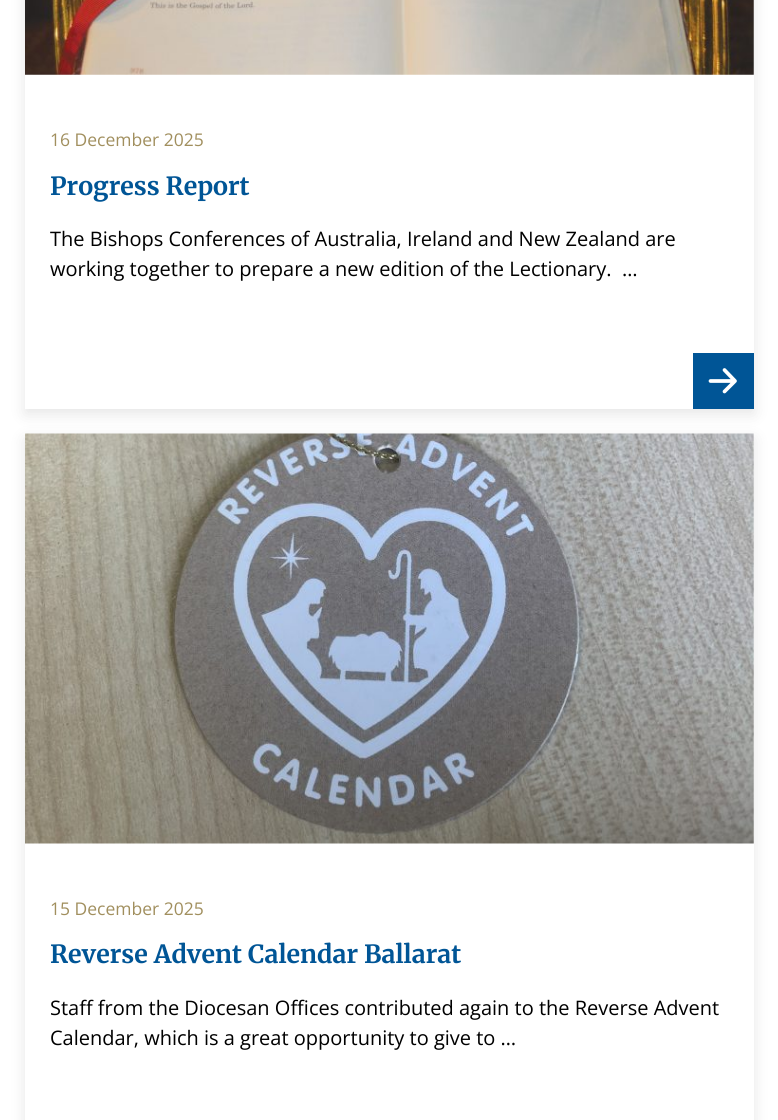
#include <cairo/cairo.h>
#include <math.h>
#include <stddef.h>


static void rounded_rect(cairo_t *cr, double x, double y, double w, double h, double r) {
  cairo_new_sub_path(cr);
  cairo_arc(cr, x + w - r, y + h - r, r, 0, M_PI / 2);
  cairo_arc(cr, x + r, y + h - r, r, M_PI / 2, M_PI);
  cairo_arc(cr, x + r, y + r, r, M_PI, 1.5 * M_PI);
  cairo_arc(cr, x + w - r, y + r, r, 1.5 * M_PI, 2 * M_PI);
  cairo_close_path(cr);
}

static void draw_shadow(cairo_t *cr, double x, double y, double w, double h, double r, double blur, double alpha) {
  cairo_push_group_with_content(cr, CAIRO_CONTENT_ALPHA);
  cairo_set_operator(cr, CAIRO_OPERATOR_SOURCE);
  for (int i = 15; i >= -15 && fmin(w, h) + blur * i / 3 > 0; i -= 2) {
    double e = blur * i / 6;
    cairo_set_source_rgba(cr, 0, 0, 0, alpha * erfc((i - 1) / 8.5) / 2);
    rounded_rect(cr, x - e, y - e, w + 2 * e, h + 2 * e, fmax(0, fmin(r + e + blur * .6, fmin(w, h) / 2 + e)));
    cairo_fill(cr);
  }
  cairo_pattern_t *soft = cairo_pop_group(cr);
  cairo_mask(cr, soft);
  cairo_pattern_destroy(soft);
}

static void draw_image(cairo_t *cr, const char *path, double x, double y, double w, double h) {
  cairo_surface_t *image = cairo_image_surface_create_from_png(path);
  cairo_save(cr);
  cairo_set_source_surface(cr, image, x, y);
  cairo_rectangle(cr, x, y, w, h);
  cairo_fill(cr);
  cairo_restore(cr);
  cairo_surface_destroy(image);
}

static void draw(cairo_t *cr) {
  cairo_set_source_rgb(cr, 1, 1, 1);
  cairo_paint(cr);
  cairo_save(cr);
  cairo_set_fill_rule(cr, CAIRO_FILL_RULE_EVEN_ODD);
  cairo_new_path(cr);
  cairo_move_to(cr, 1, 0);
  cairo_line_to(cr, 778, 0);
  cairo_line_to(cr, 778, 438);
  cairo_line_to(cr, 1, 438);
  cairo_close_path(cr);
  cairo_move_to(cr, 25, -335);
  cairo_line_to(cr, 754, -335);
  cairo_line_to(cr, 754, 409);
  cairo_line_to(cr, 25, 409);
  cairo_close_path(cr);
  cairo_clip(cr);
  cairo_set_source_rgb(cr, 0, 0, 0);
  draw_shadow(cr, 25, -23, 729, 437, 0, 7.5, 0.1);
  cairo_restore(cr);
  draw_image(cr, "images/1.png", 25, 0, 729, 75);
  cairo_set_source_rgb(cr, 0, 85 / 255.0, 150 / 255.0);
  cairo_rectangle(cr, 693, 353, 61, 56);
  cairo_fill(cr);
  cairo_new_path(cr);
  cairo_move_to(cr, 710.5, 381);
  cairo_line_to(cr, 735, 381);
  cairo_move_to(cr, 724.5, 370);
  cairo_line_to(cr, 735, 381);
  cairo_line_to(cr, 724.5, 391.5);
  cairo_set_source_rgb(cr, 1, 1, 1);
  cairo_set_line_width(cr, 3.7);
  cairo_set_line_cap(cr, CAIRO_LINE_CAP_ROUND);
  cairo_set_line_join(cr, CAIRO_LINE_JOIN_ROUND);
  cairo_stroke(cr);
  cairo_save(cr);
  cairo_set_fill_rule(cr, CAIRO_FILL_RULE_EVEN_ODD);
  cairo_new_path(cr);
  cairo_move_to(cr, 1, 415);
  cairo_line_to(cr, 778, 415);
  cairo_line_to(cr, 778, 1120);
  cairo_line_to(cr, 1, 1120);
  cairo_close_path(cr);
  cairo_move_to(cr, 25, 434);
  cairo_line_to(cr, 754, 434);
  cairo_line_to(cr, 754, 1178);
  cairo_line_to(cr, 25, 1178);
  cairo_close_path(cr);
  cairo_clip(cr);
  cairo_set_source_rgb(cr, 0, 0, 0);
  draw_shadow(cr, 25, 439, 729, 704, 0, 7.5, 0.1);
  cairo_restore(cr);
  draw_image(cr, "images/2.png", 25, 433, 729, 411);
  cairo_select_font_face(cr, "Open Sans", CAIRO_FONT_SLANT_NORMAL, CAIRO_FONT_WEIGHT_NORMAL);
  cairo_set_font_size(cr, 17.5);
  cairo_set_source_rgb(cr, 161 / 255.0, 143 / 255.0, 94 / 255.0);
  cairo_move_to(cr, 50, 146);
  cairo_show_text(cr, "16 December 2025");
  cairo_select_font_face(cr, "Merriweather", CAIRO_FONT_SLANT_NORMAL, CAIRO_FONT_WEIGHT_BOLD);
  cairo_set_font_size(cr, 25);
  cairo_set_source_rgb(cr, 0, 85 / 255.0, 150 / 255.0);
  cairo_move_to(cr, 50, 195);
  cairo_show_text(cr, "Progress Report");
  cairo_select_font_face(cr, "Open Sans", CAIRO_FONT_SLANT_NORMAL, CAIRO_FONT_WEIGHT_NORMAL);
  cairo_set_font_size(cr, 20);
  cairo_set_source_rgb(cr, 0, 0, 0);
  cairo_move_to(cr, 50, 246);
  cairo_show_text(cr, "The Bishops Conferences of Australia, Ireland and New Zealand are");
  cairo_move_to(cr, 50, 276);
  cairo_show_text(cr, "working together to prepare a new edition of the Lectionary.  …");
  cairo_set_font_size(cr, 17.5);
  cairo_set_source_rgb(cr, 161 / 255.0, 143 / 255.0, 94 / 255.0);
  cairo_move_to(cr, 50, 915);
  cairo_show_text(cr, "15 December 2025");
  cairo_select_font_face(cr, "Merriweather", CAIRO_FONT_SLANT_NORMAL, CAIRO_FONT_WEIGHT_BOLD);
  cairo_set_font_size(cr, 25);
  cairo_set_source_rgb(cr, 0, 85 / 255.0, 150 / 255.0);
  cairo_move_to(cr, 50, 963);
  cairo_show_text(cr, "Reverse Advent Calendar Ballarat");
  cairo_select_font_face(cr, "Open Sans", CAIRO_FONT_SLANT_NORMAL, CAIRO_FONT_WEIGHT_NORMAL);
  cairo_set_font_size(cr, 20);
  cairo_set_source_rgb(cr, 0, 0, 0);
  cairo_move_to(cr, 50, 1015);
  cairo_show_text(cr, "Staff from the Diocesan Offices contributed again to the Reverse Advent");
  cairo_move_to(cr, 50, 1045);
  cairo_show_text(cr, "Calendar, which is a great opportunity to give to …");
}

int main(void) {
  cairo_surface_t *surface = cairo_image_surface_create(CAIRO_FORMAT_RGB24, 778, 1120);
  cairo_t *cr = cairo_create(surface);
  cairo_font_options_t *options = cairo_font_options_create();
  cairo_font_options_set_hint_metrics(options, CAIRO_HINT_METRICS_OFF);
  cairo_font_options_set_hint_style(options, CAIRO_HINT_STYLE_NONE);
  cairo_set_font_options(cr, options);
  cairo_set_miter_limit(cr, 4);
  draw(cr);
  cairo_surface_write_to_png(surface, "out.png");
  cairo_font_options_destroy(options);
  cairo_destroy(cr);
  cairo_surface_destroy(surface);
  return 0;
}
